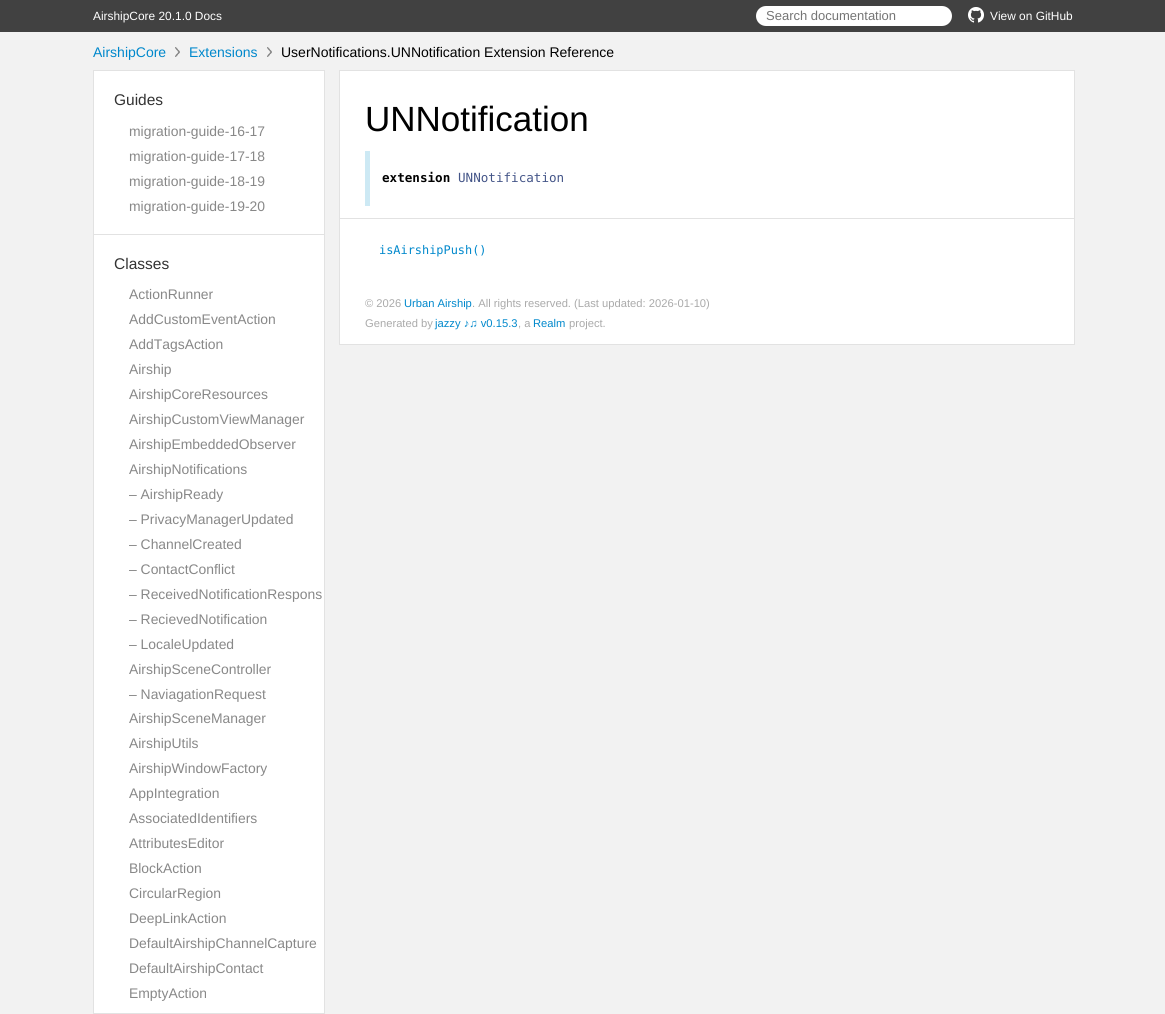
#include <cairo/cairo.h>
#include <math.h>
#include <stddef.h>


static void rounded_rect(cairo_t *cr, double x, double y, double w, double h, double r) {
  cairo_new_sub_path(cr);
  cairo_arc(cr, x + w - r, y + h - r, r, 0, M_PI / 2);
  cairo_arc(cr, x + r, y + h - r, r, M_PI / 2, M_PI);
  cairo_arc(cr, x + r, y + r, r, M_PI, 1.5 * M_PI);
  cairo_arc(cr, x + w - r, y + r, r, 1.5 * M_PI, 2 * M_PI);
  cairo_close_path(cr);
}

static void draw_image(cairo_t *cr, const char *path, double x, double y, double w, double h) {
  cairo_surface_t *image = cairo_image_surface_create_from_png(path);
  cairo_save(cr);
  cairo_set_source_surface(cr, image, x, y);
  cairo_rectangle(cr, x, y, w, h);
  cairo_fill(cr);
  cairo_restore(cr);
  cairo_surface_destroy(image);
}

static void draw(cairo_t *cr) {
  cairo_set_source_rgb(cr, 242 / 255.0, 242 / 255.0, 242 / 255.0);
  cairo_paint(cr);
  cairo_set_source_rgb(cr, 65 / 255.0, 65 / 255.0, 65 / 255.0);
  cairo_rectangle(cr, 0, 0, 1165, 32);
  cairo_fill(cr);
  cairo_set_source_rgb(cr, 1, 1, 1);
  rounded_rect(cr, 756, 6, 196, 20, 10);
  cairo_fill(cr);
  draw_image(cr, "images/1.png", 968, 7, 16, 16);
  draw_image(cr, "images/2.png", 175, 47, 5, 10);
  draw_image(cr, "images/2.png", 267, 47, 5, 10);
  cairo_rectangle(cr, 93.5, 70.5, 231, 943);
  cairo_set_source_rgb(cr, 226 / 255.0, 226 / 255.0, 226 / 255.0);
  cairo_set_line_width(cr, 1);
  cairo_stroke(cr);
  cairo_set_source_rgb(cr, 1, 1, 1);
  cairo_rectangle(cr, 94, 71, 230, 942);
  cairo_fill(cr);
  cairo_set_source_rgb(cr, 226 / 255.0, 226 / 255.0, 226 / 255.0);
  cairo_rectangle(cr, 94, 234, 230, 1);
  cairo_fill(cr);
  cairo_set_source_rgb(cr, 1, 1, 1);
  cairo_rectangle(cr, 339.5, 70.5, 735, 274);
  cairo_fill_preserve(cr);
  cairo_set_source_rgb(cr, 226 / 255.0, 226 / 255.0, 226 / 255.0);
  cairo_stroke(cr);
  cairo_set_source_rgb(cr, 205 / 255.0, 233 / 255.0, 244 / 255.0);
  cairo_rectangle(cr, 365, 151, 5, 55);
  cairo_fill(cr);
  cairo_set_source_rgb(cr, 226 / 255.0, 226 / 255.0, 226 / 255.0);
  cairo_rectangle(cr, 340, 218, 734, 1);
  cairo_fill(cr);
  cairo_select_font_face(cr, "Liberation Sans", CAIRO_FONT_SLANT_NORMAL, CAIRO_FONT_WEIGHT_NORMAL);
  cairo_set_font_size(cr, 11.9);
  cairo_set_source_rgb(cr, 1, 1, 1);
  cairo_move_to(cr, 93, 20);
  cairo_show_text(cr, "AirshipCore 20.1.0 Docs");
  cairo_set_font_size(cr, 13);
  cairo_set_source_rgb(cr, 117 / 255.0, 117 / 255.0, 117 / 255.0);
  cairo_move_to(cr, 766, 20);
  cairo_show_text(cr, "Search documentation");
  cairo_set_font_size(cr, 11.9);
  cairo_set_source_rgb(cr, 1, 1, 1);
  cairo_move_to(cr, 990, 20);
  cairo_show_text(cr, "View on GitHub");
  cairo_set_font_size(cr, 14);
  cairo_set_source_rgb(cr, 0, 136 / 255.0, 204 / 255.0);
  cairo_move_to(cr, 93, 57);
  cairo_show_text(cr, "AirshipCore");
  cairo_move_to(cr, 189, 57);
  cairo_show_text(cr, "Extensions");
  cairo_set_source_rgb(cr, 0, 0, 0);
  cairo_move_to(cr, 281, 57);
  cairo_show_text(cr, "UserNotifications.UNNotification Extension Reference");
  cairo_set_font_size(cr, 15.5);
  cairo_set_source_rgb(cr, 51 / 255.0, 51 / 255.0, 51 / 255.0);
  cairo_move_to(cr, 114, 105);
  cairo_show_text(cr, "Guides");
  cairo_set_font_size(cr, 13.9);
  cairo_set_source_rgb(cr, 136 / 255.0, 136 / 255.0, 136 / 255.0);
  cairo_move_to(cr, 129, 136);
  cairo_show_text(cr, "migration-guide-16-17");
  cairo_move_to(cr, 129, 161);
  cairo_show_text(cr, "migration-guide-17-18");
  cairo_move_to(cr, 129, 186);
  cairo_show_text(cr, "migration-guide-18-19");
  cairo_move_to(cr, 129, 211);
  cairo_show_text(cr, "migration-guide-19-20");
  cairo_set_font_size(cr, 15.5);
  cairo_set_source_rgb(cr, 51 / 255.0, 51 / 255.0, 51 / 255.0);
  cairo_move_to(cr, 114, 269);
  cairo_show_text(cr, "Classes");
  cairo_set_font_size(cr, 13.9);
  cairo_set_source_rgb(cr, 136 / 255.0, 136 / 255.0, 136 / 255.0);
  cairo_move_to(cr, 129, 299);
  cairo_show_text(cr, "ActionRunner");
  cairo_move_to(cr, 129, 324);
  cairo_show_text(cr, "AddCustomEventAction");
  cairo_move_to(cr, 129, 349);
  cairo_show_text(cr, "AddTagsAction");
  cairo_move_to(cr, 129, 374);
  cairo_show_text(cr, "Airship");
  cairo_move_to(cr, 129, 399);
  cairo_show_text(cr, "AirshipCoreResources");
  cairo_move_to(cr, 129, 424);
  cairo_show_text(cr, "AirshipCustomViewManager");
  cairo_move_to(cr, 129, 449);
  cairo_show_text(cr, "AirshipEmbeddedObserver");
  cairo_move_to(cr, 129, 474);
  cairo_show_text(cr, "AirshipNotifications");
  cairo_move_to(cr, 129, 499);
  cairo_show_text(cr, "– AirshipReady");
  cairo_move_to(cr, 129, 524);
  cairo_show_text(cr, "– PrivacyManagerUpdated");
  cairo_move_to(cr, 129, 549);
  cairo_show_text(cr, "– ChannelCreated");
  cairo_move_to(cr, 129, 574);
  cairo_show_text(cr, "– ContactConflict");
  cairo_move_to(cr, 129, 599);
  cairo_show_text(cr, "– ReceivedNotificationRespons");
  cairo_move_to(cr, 129, 624);
  cairo_show_text(cr, "– RecievedNotification");
  cairo_move_to(cr, 129, 649);
  cairo_show_text(cr, "– LocaleUpdated");
  cairo_move_to(cr, 129, 674);
  cairo_show_text(cr, "AirshipSceneController");
  cairo_move_to(cr, 129, 699);
  cairo_show_text(cr, "– NaviagationRequest");
  cairo_move_to(cr, 129, 723);
  cairo_show_text(cr, "AirshipSceneManager");
  cairo_move_to(cr, 129, 748);
  cairo_show_text(cr, "AirshipUtils");
  cairo_move_to(cr, 129, 773);
  cairo_show_text(cr, "AirshipWindowFactory");
  cairo_move_to(cr, 129, 798);
  cairo_show_text(cr, "AppIntegration");
  cairo_move_to(cr, 129, 823);
  cairo_show_text(cr, "AssociatedIdentifiers");
  cairo_move_to(cr, 129, 848);
  cairo_show_text(cr, "AttributesEditor");
  cairo_move_to(cr, 129, 873);
  cairo_show_text(cr, "BlockAction");
  cairo_move_to(cr, 129, 898);
  cairo_show_text(cr, "CircularRegion");
  cairo_move_to(cr, 129, 923);
  cairo_show_text(cr, "DeepLinkAction");
  cairo_move_to(cr, 129, 948);
  cairo_show_text(cr, "DefaultAirshipChannelCapture");
  cairo_move_to(cr, 129, 973);
  cairo_show_text(cr, "DefaultAirshipContact");
  cairo_move_to(cr, 129, 998);
  cairo_show_text(cr, "EmptyAction");
  cairo_set_font_size(cr, 35);
  cairo_set_source_rgb(cr, 0, 0, 0);
  cairo_move_to(cr, 365, 131);
  cairo_show_text(cr, "UNNotification");
  cairo_select_font_face(cr, "DejaVu Sans Mono", CAIRO_FONT_SLANT_NORMAL, CAIRO_FONT_WEIGHT_BOLD);
  cairo_set_font_size(cr, 12.6);
  cairo_move_to(cr, 382, 182);
  cairo_show_text(cr, "extension");
  cairo_select_font_face(cr, "DejaVu Sans Mono", CAIRO_FONT_SLANT_NORMAL, CAIRO_FONT_WEIGHT_NORMAL);
  cairo_set_source_rgb(cr, 68 / 255.0, 85 / 255.0, 136 / 255.0);
  cairo_move_to(cr, 458, 182);
  cairo_show_text(cr, "UNNotification");
  cairo_set_font_size(cr, 11.9);
  cairo_set_source_rgb(cr, 0, 136 / 255.0, 204 / 255.0);
  cairo_move_to(cr, 379, 254);
  cairo_show_text(cr, "isAirshipPush()");
  cairo_select_font_face(cr, "Liberation Sans", CAIRO_FONT_SLANT_NORMAL, CAIRO_FONT_WEIGHT_NORMAL);
  cairo_set_font_size(cr, 11.2);
  cairo_set_source_rgb(cr, 170 / 255.0, 170 / 255.0, 170 / 255.0);
  cairo_move_to(cr, 365, 307);
  cairo_show_text(cr, "© 2026");
  cairo_set_source_rgb(cr, 0, 136 / 255.0, 204 / 255.0);
  cairo_move_to(cr, 404, 307);
  cairo_show_text(cr, "Urban Airship");
  cairo_set_source_rgb(cr, 170 / 255.0, 170 / 255.0, 170 / 255.0);
  cairo_move_to(cr, 472, 307);
  cairo_show_text(cr, ". All rights reserved. (Last updated: 2026-01-10)");
  cairo_move_to(cr, 365, 327);
  cairo_show_text(cr, "Generated by");
  cairo_set_source_rgb(cr, 0, 136 / 255.0, 204 / 255.0);
  cairo_move_to(cr, 435, 327);
  cairo_show_text(cr, "jazzy ♪♫ v0.15.3");
  cairo_set_source_rgb(cr, 170 / 255.0, 170 / 255.0, 170 / 255.0);
  cairo_move_to(cr, 518, 327);
  cairo_show_text(cr, ", a");
  cairo_set_source_rgb(cr, 0, 136 / 255.0, 204 / 255.0);
  cairo_move_to(cr, 533, 327);
  cairo_show_text(cr, "Realm");
  cairo_set_source_rgb(cr, 170 / 255.0, 170 / 255.0, 170 / 255.0);
  cairo_move_to(cr, 569, 327);
  cairo_show_text(cr, "project.");
}

int main(void) {
  cairo_surface_t *surface = cairo_image_surface_create(CAIRO_FORMAT_RGB24, 1165, 1014);
  cairo_t *cr = cairo_create(surface);
  cairo_font_options_t *options = cairo_font_options_create();
  cairo_font_options_set_hint_metrics(options, CAIRO_HINT_METRICS_OFF);
  cairo_font_options_set_hint_style(options, CAIRO_HINT_STYLE_NONE);
  cairo_set_font_options(cr, options);
  cairo_set_miter_limit(cr, 4);
  draw(cr);
  cairo_surface_write_to_png(surface, "out.png");
  cairo_font_options_destroy(options);
  cairo_destroy(cr);
  cairo_surface_destroy(surface);
  return 0;
}
